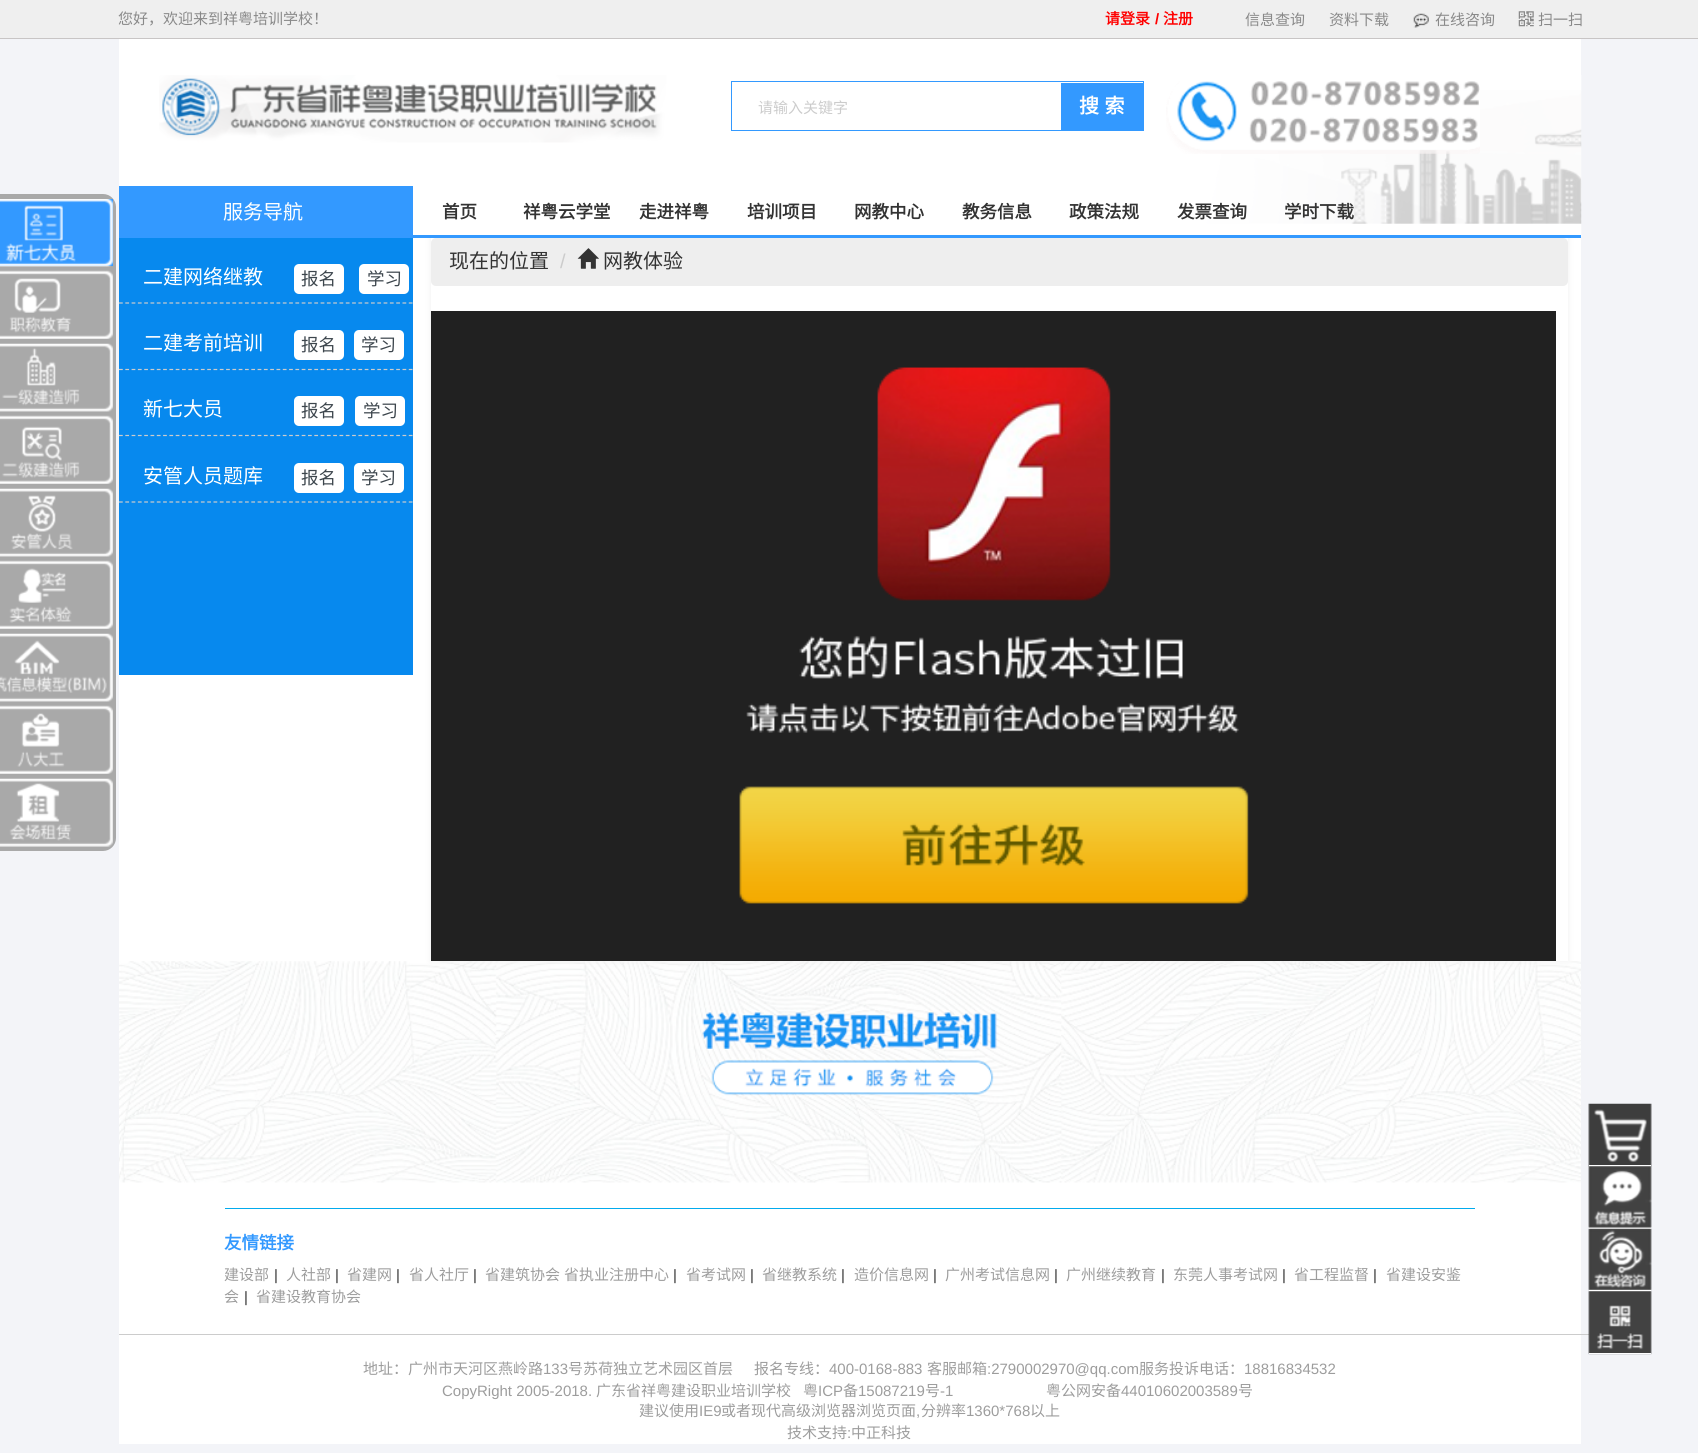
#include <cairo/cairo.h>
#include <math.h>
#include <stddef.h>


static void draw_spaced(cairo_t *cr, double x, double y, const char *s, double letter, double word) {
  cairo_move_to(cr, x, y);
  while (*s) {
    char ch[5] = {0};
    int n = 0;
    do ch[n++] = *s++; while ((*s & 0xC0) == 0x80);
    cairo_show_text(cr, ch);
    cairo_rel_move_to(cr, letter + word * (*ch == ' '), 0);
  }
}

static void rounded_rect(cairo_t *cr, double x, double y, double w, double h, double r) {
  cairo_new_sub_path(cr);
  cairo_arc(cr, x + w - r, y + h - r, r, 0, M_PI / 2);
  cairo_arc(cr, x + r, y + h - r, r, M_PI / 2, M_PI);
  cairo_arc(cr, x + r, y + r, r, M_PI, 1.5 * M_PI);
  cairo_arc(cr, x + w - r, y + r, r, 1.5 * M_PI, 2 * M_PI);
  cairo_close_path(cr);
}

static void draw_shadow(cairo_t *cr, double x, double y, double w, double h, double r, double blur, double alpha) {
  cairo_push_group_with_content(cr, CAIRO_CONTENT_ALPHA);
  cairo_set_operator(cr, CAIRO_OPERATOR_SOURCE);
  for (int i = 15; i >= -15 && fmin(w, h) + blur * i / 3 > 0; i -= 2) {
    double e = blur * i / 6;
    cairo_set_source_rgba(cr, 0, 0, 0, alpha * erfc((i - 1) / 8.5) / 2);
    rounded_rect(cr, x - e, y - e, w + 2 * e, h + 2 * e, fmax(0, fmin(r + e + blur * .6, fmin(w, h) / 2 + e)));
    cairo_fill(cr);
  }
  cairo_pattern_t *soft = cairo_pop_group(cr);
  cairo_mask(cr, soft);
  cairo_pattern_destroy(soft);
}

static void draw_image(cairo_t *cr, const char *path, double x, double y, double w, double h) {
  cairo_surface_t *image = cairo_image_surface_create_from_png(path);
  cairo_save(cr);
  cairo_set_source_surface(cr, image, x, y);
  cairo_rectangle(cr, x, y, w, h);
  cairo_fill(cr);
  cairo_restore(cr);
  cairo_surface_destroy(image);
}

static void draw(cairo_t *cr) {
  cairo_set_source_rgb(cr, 243 / 255.0, 244 / 255.0, 248 / 255.0);
  cairo_paint(cr);
  cairo_set_source_rgb(cr, 1, 1, 1);
  cairo_rectangle(cr, 119, 39, 1462, 1405);
  cairo_fill(cr);
  cairo_set_source_rgb(cr, 239 / 255.0, 239 / 255.0, 239 / 255.0);
  cairo_rectangle(cr, 0, 0, 1698, 38);
  cairo_fill(cr);
  cairo_set_source_rgb(cr, 200 / 255.0, 197 / 255.0, 197 / 255.0);
  cairo_rectangle(cr, 0, 38, 1698, 1);
  cairo_fill(cr);
  draw_image(cr, "images/1.png", 1413, 13, 16, 15);
  draw_image(cr, "images/2.png", 1518, 11, 16, 16);
  cairo_set_source_rgb(cr, 169 / 255.0, 169 / 255.0, 169 / 255.0);
  rounded_rect(cr, -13, 194, 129, 657, 13);
  cairo_fill(cr);
  cairo_set_source_rgb(cr, 51 / 255.0, 153 / 255.0, 1);
  cairo_rectangle(cr, 0, 199, 113, 67);
  cairo_fill(cr);
  draw_image(cr, "images/3.png", 0, 199, 113, 68);
  draw_image(cr, "images/4.png", 0, 270, 113, 69);
  draw_image(cr, "images/5.png", 0, 343, 113, 69);
  draw_image(cr, "images/6.png", 0, 415, 113, 69);
  draw_image(cr, "images/7.png", 0, 488, 113, 69);
  draw_image(cr, "images/8.png", 0, 560, 113, 69);
  draw_image(cr, "images/9.png", 0, 633, 113, 69);
  draw_image(cr, "images/10.png", 0, 705, 113, 69);
  draw_image(cr, "images/11.png", 0, 778, 113, 69);
  draw_image(cr, "images/16.png", 119, 961, 1462, 222);
  cairo_set_source_rgb(cr, 238 / 255.0, 238 / 255.0, 238 / 255.0);
  draw_shadow(cr, 431, 238, 1137, 723, 0, 3, 1);
  draw_image(cr, "images/12.png", 159, 75, 1423, 162);
  cairo_rectangle(cr, 731.5, 81.5, 412, 49);
  cairo_set_source_rgb(cr, 51 / 255.0, 153 / 255.0, 1);
  cairo_set_line_width(cr, 1);
  cairo_stroke(cr);
  cairo_rectangle(cr, 1061, 83, 82, 47);
  cairo_fill(cr);
  draw_image(cr, "images/13.png", 1166, 81, 314, 73);
  cairo_rectangle(cr, 119, 186, 294, 52);
  cairo_fill(cr);
  cairo_set_source_rgb(cr, 7 / 255.0, 137 / 255.0, 238 / 255.0);
  cairo_rectangle(cr, 119, 238, 294, 437);
  cairo_fill(cr);
  cairo_new_path(cr);
  cairo_move_to(cr, 119, 303);
  cairo_line_to(cr, 412.5, 303);
  cairo_set_source_rgb(cr, 204 / 255.0, 204 / 255.0, 204 / 255.0);
  cairo_set_line_width(cr, 1.2);
  cairo_set_dash(cr, (double[]){3.75, 2.55}, 2, 0);
  cairo_stroke(cr);
  cairo_set_source_rgb(cr, 1, 1, 1);
  rounded_rect(cr, 294, 264, 50, 30, 5);
  cairo_fill(cr);
  rounded_rect(cr, 359, 264, 50, 30, 5);
  cairo_fill(cr);
  cairo_new_path(cr);
  cairo_move_to(cr, 119, 369.5);
  cairo_line_to(cr, 412.5, 369.5);
  cairo_set_source_rgb(cr, 204 / 255.0, 204 / 255.0, 204 / 255.0);
  cairo_stroke(cr);
  cairo_set_source_rgb(cr, 1, 1, 1);
  rounded_rect(cr, 294, 330, 50, 30, 5);
  cairo_fill(cr);
  rounded_rect(cr, 354, 330, 50, 30, 5);
  cairo_fill(cr);
  cairo_new_path(cr);
  cairo_move_to(cr, 119, 435.5);
  cairo_line_to(cr, 412.5, 435.5);
  cairo_set_source_rgb(cr, 204 / 255.0, 204 / 255.0, 204 / 255.0);
  cairo_stroke(cr);
  cairo_set_source_rgb(cr, 1, 1, 1);
  rounded_rect(cr, 294, 396, 50, 30, 5);
  cairo_fill(cr);
  rounded_rect(cr, 355, 396, 50, 30, 5);
  cairo_fill(cr);
  cairo_new_path(cr);
  cairo_move_to(cr, 119, 502);
  cairo_line_to(cr, 412.5, 502);
  cairo_set_source_rgb(cr, 204 / 255.0, 204 / 255.0, 204 / 255.0);
  cairo_stroke(cr);
  cairo_set_source_rgb(cr, 1, 1, 1);
  rounded_rect(cr, 294, 463, 50, 30, 5);
  cairo_fill(cr);
  rounded_rect(cr, 354, 463, 50, 30, 5);
  cairo_fill(cr);
  cairo_set_source_rgb(cr, 51 / 255.0, 153 / 255.0, 1);
  cairo_rectangle(cr, 413, 235, 1168, 3);
  cairo_fill(cr);
  cairo_set_source_rgb(cr, 1, 1, 1);
  cairo_rectangle(cr, 431, 238, 1137, 723);
  cairo_fill(cr);
  cairo_set_source_rgb(cr, 238 / 255.0, 238 / 255.0, 238 / 255.0);
  rounded_rect(cr, 431, 238, 1137, 48, 5);
  cairo_fill(cr);
  draw_image(cr, "images/14.png", 577, 248, 22, 21);
  cairo_set_source_rgb(cr, 33 / 255.0, 33 / 255.0, 33 / 255.0);
  cairo_rectangle(cr, 431, 311, 1125, 650);
  cairo_fill(cr);
  draw_image(cr, "images/15.png", 739, 367, 510, 537);
  cairo_set_source_rgb(cr, 2 / 255.0, 171 / 255.0, 237 / 255.0);
  cairo_rectangle(cr, 225, 1208, 1250, 1);
  cairo_fill(cr);
  draw_image(cr, "images/17.png", 1588, 1103, 64, 64);
  cairo_set_source_rgb(cr, 1, 1, 1);
  cairo_rectangle(cr, 1589, 1165, 62, 1);
  cairo_fill(cr);
  cairo_set_source_rgb(cr, 222 / 255.0, 222 / 255.0, 222 / 255.0);
  cairo_rectangle(cr, 1589, 1166, 62, 62);
  cairo_fill(cr);
  draw_image(cr, "images/18.png", 1588, 1166, 64, 62);
  cairo_set_source_rgb(cr, 1, 1, 1);
  cairo_rectangle(cr, 1589, 1228, 62, 1);
  cairo_fill(cr);
  cairo_set_source_rgb(cr, 222 / 255.0, 222 / 255.0, 222 / 255.0);
  cairo_rectangle(cr, 1589, 1229, 62, 61);
  cairo_fill(cr);
  draw_image(cr, "images/19.png", 1588, 1228, 64, 63);
  cairo_set_source_rgb(cr, 1, 1, 1);
  cairo_rectangle(cr, 1589, 1290, 62, 1);
  cairo_fill(cr);
  cairo_set_source_rgb(cr, 222 / 255.0, 222 / 255.0, 222 / 255.0);
  cairo_rectangle(cr, 1589, 1291, 62, 62);
  cairo_fill(cr);
  cairo_set_source_rgb(cr, 204 / 255.0, 204 / 255.0, 204 / 255.0);
  cairo_rectangle(cr, 119, 1334, 1470, 1);
  cairo_fill(cr);
  draw_image(cr, "images/20.png", 1588, 1291, 64, 64);
  cairo_set_source_rgb(cr, 1, 1, 1);
  cairo_rectangle(cr, 1589, 1353, 62, 1);
  cairo_fill(cr);
  cairo_select_font_face(cr, "Noto Sans CJK SC", CAIRO_FONT_SLANT_NORMAL, CAIRO_FONT_WEIGHT_NORMAL);
  cairo_set_font_size(cr, 15);
  cairo_set_source_rgb(cr, 137 / 255.0, 137 / 255.0, 137 / 255.0);
  cairo_move_to(cr, 118, 24);
  cairo_show_text(cr, "您好，欢迎来到祥粤培训学校！");
  cairo_select_font_face(cr, "Noto Sans CJK SC", CAIRO_FONT_SLANT_NORMAL, CAIRO_FONT_WEIGHT_BOLD);
  cairo_set_source_rgb(cr, 1, 0, 0);
  cairo_move_to(cr, 1105, 24);
  cairo_show_text(cr, "请登录");
  cairo_select_font_face(cr, "Liberation Sans", CAIRO_FONT_SLANT_NORMAL, CAIRO_FONT_WEIGHT_BOLD);
  cairo_move_to(cr, 1155, 24);
  cairo_show_text(cr, "/");
  cairo_select_font_face(cr, "Noto Sans CJK SC", CAIRO_FONT_SLANT_NORMAL, CAIRO_FONT_WEIGHT_BOLD);
  cairo_move_to(cr, 1163, 24);
  cairo_show_text(cr, "注册");
  cairo_select_font_face(cr, "Noto Sans CJK SC", CAIRO_FONT_SLANT_NORMAL, CAIRO_FONT_WEIGHT_NORMAL);
  cairo_set_source_rgb(cr, 137 / 255.0, 137 / 255.0, 137 / 255.0);
  cairo_move_to(cr, 1245, 25);
  cairo_show_text(cr, "信息查询");
  cairo_move_to(cr, 1329, 25);
  cairo_show_text(cr, "资料下载");
  cairo_move_to(cr, 1435, 25);
  cairo_show_text(cr, "在线咨询");
  cairo_move_to(cr, 1538, 25);
  cairo_show_text(cr, "扫一扫");
  cairo_set_source_rgb(cr, 204 / 255.0, 204 / 255.0, 204 / 255.0);
  cairo_move_to(cr, 758, 113);
  cairo_show_text(cr, "请输入关键字");
  cairo_select_font_face(cr, "Noto Sans CJK SC", CAIRO_FONT_SLANT_NORMAL, CAIRO_FONT_WEIGHT_BOLD);
  cairo_set_font_size(cr, 20);
  cairo_set_source_rgb(cr, 1, 1, 1);
  draw_spaced(cr, 1079, 113, "搜 索", 0, 1);
  cairo_select_font_face(cr, "Noto Sans CJK SC", CAIRO_FONT_SLANT_NORMAL, CAIRO_FONT_WEIGHT_NORMAL);
  cairo_move_to(cr, 223, 219);
  cairo_show_text(cr, "服务导航");
  cairo_move_to(cr, 143, 284);
  cairo_show_text(cr, "二建网络继教");
  cairo_set_font_size(cr, 17.5);
  cairo_set_source_rgb(cr, 61 / 255.0, 70 / 255.0, 77 / 255.0);
  cairo_move_to(cr, 301, 285);
  cairo_show_text(cr, "报名");
  cairo_move_to(cr, 367, 285);
  cairo_show_text(cr, "学习");
  cairo_set_font_size(cr, 20);
  cairo_set_source_rgb(cr, 1, 1, 1);
  cairo_move_to(cr, 143, 350);
  cairo_show_text(cr, "二建考前培训");
  cairo_set_font_size(cr, 17.5);
  cairo_set_source_rgb(cr, 61 / 255.0, 70 / 255.0, 77 / 255.0);
  cairo_move_to(cr, 301, 351);
  cairo_show_text(cr, "报名");
  cairo_move_to(cr, 361, 351);
  cairo_show_text(cr, "学习");
  cairo_set_font_size(cr, 20);
  cairo_set_source_rgb(cr, 1, 1, 1);
  cairo_move_to(cr, 143, 416);
  cairo_show_text(cr, "新七大员");
  cairo_set_font_size(cr, 17.5);
  cairo_set_source_rgb(cr, 61 / 255.0, 70 / 255.0, 77 / 255.0);
  cairo_move_to(cr, 301, 417);
  cairo_show_text(cr, "报名");
  cairo_move_to(cr, 363, 417);
  cairo_show_text(cr, "学习");
  cairo_set_font_size(cr, 20);
  cairo_set_source_rgb(cr, 1, 1, 1);
  cairo_move_to(cr, 143, 483);
  cairo_show_text(cr, "安管人员题库");
  cairo_set_font_size(cr, 17.5);
  cairo_set_source_rgb(cr, 61 / 255.0, 70 / 255.0, 77 / 255.0);
  cairo_move_to(cr, 301, 484);
  cairo_show_text(cr, "报名");
  cairo_move_to(cr, 361, 484);
  cairo_show_text(cr, "学习");
  cairo_select_font_face(cr, "Noto Sans CJK SC", CAIRO_FONT_SLANT_NORMAL, CAIRO_FONT_WEIGHT_BOLD);
  cairo_set_source_rgb(cr, 51 / 255.0, 51 / 255.0, 51 / 255.0);
  cairo_move_to(cr, 442, 218);
  cairo_show_text(cr, "首页");
  cairo_move_to(cr, 523, 218);
  cairo_show_text(cr, "祥粤云学堂");
  cairo_move_to(cr, 639, 218);
  cairo_show_text(cr, "走进祥粤");
  cairo_move_to(cr, 747, 218);
  cairo_show_text(cr, "培训项目");
  cairo_move_to(cr, 854, 218);
  cairo_show_text(cr, "网教中心");
  cairo_move_to(cr, 962, 218);
  cairo_show_text(cr, "教务信息");
  cairo_move_to(cr, 1069, 218);
  cairo_show_text(cr, "政策法规");
  cairo_move_to(cr, 1177, 218);
  cairo_show_text(cr, "发票查询");
  cairo_move_to(cr, 1284, 218);
  cairo_show_text(cr, "学时下载");
  cairo_select_font_face(cr, "Noto Sans CJK SC", CAIRO_FONT_SLANT_NORMAL, CAIRO_FONT_WEIGHT_NORMAL);
  cairo_set_font_size(cr, 20);
  cairo_move_to(cr, 449, 268);
  cairo_show_text(cr, "现在的位置");
  cairo_select_font_face(cr, "Liberation Sans", CAIRO_FONT_SLANT_NORMAL, CAIRO_FONT_WEIGHT_NORMAL);
  cairo_set_source_rgb(cr, 204 / 255.0, 204 / 255.0, 204 / 255.0);
  cairo_move_to(cr, 560, 268);
  cairo_show_text(cr, "/");
  cairo_select_font_face(cr, "Noto Sans CJK SC", CAIRO_FONT_SLANT_NORMAL, CAIRO_FONT_WEIGHT_NORMAL);
  cairo_set_source_rgb(cr, 51 / 255.0, 51 / 255.0, 51 / 255.0);
  cairo_move_to(cr, 603, 268);
  cairo_show_text(cr, "网教体验");
  cairo_select_font_face(cr, "Noto Sans CJK SC", CAIRO_FONT_SLANT_NORMAL, CAIRO_FONT_WEIGHT_BOLD);
  cairo_set_font_size(cr, 17.5);
  cairo_set_source_rgb(cr, 51 / 255.0, 153 / 255.0, 1);
  cairo_move_to(cr, 224, 1249);
  cairo_show_text(cr, "友情链接");
  cairo_select_font_face(cr, "Noto Sans CJK SC", CAIRO_FONT_SLANT_NORMAL, CAIRO_FONT_WEIGHT_NORMAL);
  cairo_set_font_size(cr, 15);
  cairo_set_source_rgb(cr, 157 / 255.0, 157 / 255.0, 157 / 255.0);
  cairo_move_to(cr, 224, 1280);
  cairo_show_text(cr, "建设部");
  cairo_select_font_face(cr, "Liberation Sans", CAIRO_FONT_SLANT_NORMAL, CAIRO_FONT_WEIGHT_NORMAL);
  cairo_set_source_rgb(cr, 51 / 255.0, 51 / 255.0, 51 / 255.0);
  cairo_move_to(cr, 274, 1280);
  cairo_show_text(cr, "|");
  cairo_select_font_face(cr, "Noto Sans CJK SC", CAIRO_FONT_SLANT_NORMAL, CAIRO_FONT_WEIGHT_NORMAL);
  cairo_set_source_rgb(cr, 157 / 255.0, 157 / 255.0, 157 / 255.0);
  cairo_move_to(cr, 286, 1280);
  cairo_show_text(cr, "人社部");
  cairo_select_font_face(cr, "Liberation Sans", CAIRO_FONT_SLANT_NORMAL, CAIRO_FONT_WEIGHT_NORMAL);
  cairo_set_source_rgb(cr, 51 / 255.0, 51 / 255.0, 51 / 255.0);
  cairo_move_to(cr, 335, 1280);
  cairo_show_text(cr, "|");
  cairo_select_font_face(cr, "Noto Sans CJK SC", CAIRO_FONT_SLANT_NORMAL, CAIRO_FONT_WEIGHT_NORMAL);
  cairo_set_source_rgb(cr, 157 / 255.0, 157 / 255.0, 157 / 255.0);
  cairo_move_to(cr, 347, 1280);
  cairo_show_text(cr, "省建网");
  cairo_select_font_face(cr, "Liberation Sans", CAIRO_FONT_SLANT_NORMAL, CAIRO_FONT_WEIGHT_NORMAL);
  cairo_set_source_rgb(cr, 51 / 255.0, 51 / 255.0, 51 / 255.0);
  cairo_move_to(cr, 396, 1280);
  cairo_show_text(cr, "|");
  cairo_select_font_face(cr, "Noto Sans CJK SC", CAIRO_FONT_SLANT_NORMAL, CAIRO_FONT_WEIGHT_NORMAL);
  cairo_set_source_rgb(cr, 157 / 255.0, 157 / 255.0, 157 / 255.0);
  cairo_move_to(cr, 409, 1280);
  cairo_show_text(cr, "省人社厅");
  cairo_select_font_face(cr, "Liberation Sans", CAIRO_FONT_SLANT_NORMAL, CAIRO_FONT_WEIGHT_NORMAL);
  cairo_set_source_rgb(cr, 51 / 255.0, 51 / 255.0, 51 / 255.0);
  cairo_move_to(cr, 473, 1280);
  cairo_show_text(cr, "|");
  cairo_select_font_face(cr, "Noto Sans CJK SC", CAIRO_FONT_SLANT_NORMAL, CAIRO_FONT_WEIGHT_NORMAL);
  cairo_set_source_rgb(cr, 157 / 255.0, 157 / 255.0, 157 / 255.0);
  cairo_move_to(cr, 485, 1280);
  cairo_show_text(cr, "省建筑协会");
  cairo_move_to(cr, 564, 1280);
  cairo_show_text(cr, "省执业注册中心");
  cairo_select_font_face(cr, "Liberation Sans", CAIRO_FONT_SLANT_NORMAL, CAIRO_FONT_WEIGHT_NORMAL);
  cairo_set_source_rgb(cr, 51 / 255.0, 51 / 255.0, 51 / 255.0);
  cairo_move_to(cr, 673, 1280);
  cairo_show_text(cr, "|");
  cairo_select_font_face(cr, "Noto Sans CJK SC", CAIRO_FONT_SLANT_NORMAL, CAIRO_FONT_WEIGHT_NORMAL);
  cairo_set_source_rgb(cr, 157 / 255.0, 157 / 255.0, 157 / 255.0);
  cairo_move_to(cr, 686, 1280);
  cairo_show_text(cr, "省考试网");
  cairo_select_font_face(cr, "Liberation Sans", CAIRO_FONT_SLANT_NORMAL, CAIRO_FONT_WEIGHT_NORMAL);
  cairo_set_source_rgb(cr, 51 / 255.0, 51 / 255.0, 51 / 255.0);
  cairo_move_to(cr, 750, 1280);
  cairo_show_text(cr, "|");
  cairo_select_font_face(cr, "Noto Sans CJK SC", CAIRO_FONT_SLANT_NORMAL, CAIRO_FONT_WEIGHT_NORMAL);
  cairo_set_source_rgb(cr, 157 / 255.0, 157 / 255.0, 157 / 255.0);
  cairo_move_to(cr, 762, 1280);
  cairo_show_text(cr, "省继教系统");
  cairo_select_font_face(cr, "Liberation Sans", CAIRO_FONT_SLANT_NORMAL, CAIRO_FONT_WEIGHT_NORMAL);
  cairo_set_source_rgb(cr, 51 / 255.0, 51 / 255.0, 51 / 255.0);
  cairo_move_to(cr, 841, 1280);
  cairo_show_text(cr, "|");
  cairo_select_font_face(cr, "Noto Sans CJK SC", CAIRO_FONT_SLANT_NORMAL, CAIRO_FONT_WEIGHT_NORMAL);
  cairo_set_source_rgb(cr, 157 / 255.0, 157 / 255.0, 157 / 255.0);
  cairo_move_to(cr, 854, 1280);
  cairo_show_text(cr, "造价信息网");
  cairo_select_font_face(cr, "Liberation Sans", CAIRO_FONT_SLANT_NORMAL, CAIRO_FONT_WEIGHT_NORMAL);
  cairo_set_source_rgb(cr, 51 / 255.0, 51 / 255.0, 51 / 255.0);
  cairo_move_to(cr, 933, 1280);
  cairo_show_text(cr, "|");
  cairo_select_font_face(cr, "Noto Sans CJK SC", CAIRO_FONT_SLANT_NORMAL, CAIRO_FONT_WEIGHT_NORMAL);
  cairo_set_source_rgb(cr, 157 / 255.0, 157 / 255.0, 157 / 255.0);
  cairo_move_to(cr, 945, 1280);
  cairo_show_text(cr, "广州考试信息网");
  cairo_select_font_face(cr, "Liberation Sans", CAIRO_FONT_SLANT_NORMAL, CAIRO_FONT_WEIGHT_NORMAL);
  cairo_set_source_rgb(cr, 51 / 255.0, 51 / 255.0, 51 / 255.0);
  cairo_move_to(cr, 1054, 1280);
  cairo_show_text(cr, "|");
  cairo_select_font_face(cr, "Noto Sans CJK SC", CAIRO_FONT_SLANT_NORMAL, CAIRO_FONT_WEIGHT_NORMAL);
  cairo_set_source_rgb(cr, 157 / 255.0, 157 / 255.0, 157 / 255.0);
  cairo_move_to(cr, 1066, 1280);
  cairo_show_text(cr, "广州继续教育");
  cairo_select_font_face(cr, "Liberation Sans", CAIRO_FONT_SLANT_NORMAL, CAIRO_FONT_WEIGHT_NORMAL);
  cairo_set_source_rgb(cr, 51 / 255.0, 51 / 255.0, 51 / 255.0);
  cairo_move_to(cr, 1161, 1280);
  cairo_show_text(cr, "|");
  cairo_select_font_face(cr, "Noto Sans CJK SC", CAIRO_FONT_SLANT_NORMAL, CAIRO_FONT_WEIGHT_NORMAL);
  cairo_set_source_rgb(cr, 157 / 255.0, 157 / 255.0, 157 / 255.0);
  cairo_move_to(cr, 1173, 1280);
  cairo_show_text(cr, "东莞人事考试网");
  cairo_select_font_face(cr, "Liberation Sans", CAIRO_FONT_SLANT_NORMAL, CAIRO_FONT_WEIGHT_NORMAL);
  cairo_set_source_rgb(cr, 51 / 255.0, 51 / 255.0, 51 / 255.0);
  cairo_move_to(cr, 1282, 1280);
  cairo_show_text(cr, "|");
  cairo_select_font_face(cr, "Noto Sans CJK SC", CAIRO_FONT_SLANT_NORMAL, CAIRO_FONT_WEIGHT_NORMAL);
  cairo_set_source_rgb(cr, 157 / 255.0, 157 / 255.0, 157 / 255.0);
  cairo_move_to(cr, 1294, 1280);
  cairo_show_text(cr, "省工程监督");
  cairo_select_font_face(cr, "Liberation Sans", CAIRO_FONT_SLANT_NORMAL, CAIRO_FONT_WEIGHT_NORMAL);
  cairo_set_source_rgb(cr, 51 / 255.0, 51 / 255.0, 51 / 255.0);
  cairo_move_to(cr, 1373, 1280);
  cairo_show_text(cr, "|");
  cairo_select_font_face(cr, "Noto Sans CJK SC", CAIRO_FONT_SLANT_NORMAL, CAIRO_FONT_WEIGHT_NORMAL);
  cairo_set_source_rgb(cr, 157 / 255.0, 157 / 255.0, 157 / 255.0);
  cairo_move_to(cr, 1386, 1280);
  cairo_show_text(cr, "省建设安鉴");
  cairo_move_to(cr, 224, 1302);
  cairo_show_text(cr, "会");
  cairo_select_font_face(cr, "Liberation Sans", CAIRO_FONT_SLANT_NORMAL, CAIRO_FONT_WEIGHT_NORMAL);
  cairo_set_source_rgb(cr, 51 / 255.0, 51 / 255.0, 51 / 255.0);
  cairo_move_to(cr, 244, 1302);
  cairo_show_text(cr, "|");
  cairo_select_font_face(cr, "Noto Sans CJK SC", CAIRO_FONT_SLANT_NORMAL, CAIRO_FONT_WEIGHT_NORMAL);
  cairo_set_source_rgb(cr, 157 / 255.0, 157 / 255.0, 157 / 255.0);
  cairo_move_to(cr, 256, 1302);
  cairo_show_text(cr, "省建设教育协会");
  cairo_move_to(cr, 363, 1374);
  cairo_show_text(cr, "地址：广州市天河区燕岭路");
  cairo_select_font_face(cr, "Liberation Sans", CAIRO_FONT_SLANT_NORMAL, CAIRO_FONT_WEIGHT_NORMAL);
  cairo_move_to(cr, 543, 1374);
  cairo_show_text(cr, "133");
  cairo_select_font_face(cr, "Noto Sans CJK SC", CAIRO_FONT_SLANT_NORMAL, CAIRO_FONT_WEIGHT_NORMAL);
  cairo_move_to(cr, 568, 1374);
  cairo_show_text(cr, "号苏荷独立艺术园区首层");
  cairo_move_to(cr, 754, 1374);
  cairo_show_text(cr, "报名专线：");
  cairo_select_font_face(cr, "Liberation Sans", CAIRO_FONT_SLANT_NORMAL, CAIRO_FONT_WEIGHT_NORMAL);
  cairo_move_to(cr, 829, 1374);
  cairo_show_text(cr, "400-0168-883");
  cairo_select_font_face(cr, "Noto Sans CJK SC", CAIRO_FONT_SLANT_NORMAL, CAIRO_FONT_WEIGHT_NORMAL);
  cairo_move_to(cr, 927, 1374);
  cairo_show_text(cr, "客服邮箱");
  cairo_select_font_face(cr, "Liberation Sans", CAIRO_FONT_SLANT_NORMAL, CAIRO_FONT_WEIGHT_NORMAL);
  cairo_move_to(cr, 987, 1374);
  cairo_show_text(cr, ":2790002970@qq.com");
  cairo_select_font_face(cr, "Noto Sans CJK SC", CAIRO_FONT_SLANT_NORMAL, CAIRO_FONT_WEIGHT_NORMAL);
  cairo_move_to(cr, 1139, 1374);
  cairo_show_text(cr, "服务投诉电话：");
  cairo_select_font_face(cr, "Liberation Sans", CAIRO_FONT_SLANT_NORMAL, CAIRO_FONT_WEIGHT_NORMAL);
  cairo_move_to(cr, 1244, 1374);
  cairo_show_text(cr, "18816834532");
  cairo_move_to(cr, 442, 1396);
  cairo_show_text(cr, "CopyRight 2005-2018.");
  cairo_select_font_face(cr, "Noto Sans CJK SC", CAIRO_FONT_SLANT_NORMAL, CAIRO_FONT_WEIGHT_NORMAL);
  cairo_move_to(cr, 596, 1396);
  cairo_show_text(cr, "广东省祥粤建设职业培训学校");
  cairo_move_to(cr, 803, 1396);
  cairo_show_text(cr, "粤");
  cairo_select_font_face(cr, "Liberation Sans", CAIRO_FONT_SLANT_NORMAL, CAIRO_FONT_WEIGHT_NORMAL);
  cairo_move_to(cr, 818, 1396);
  cairo_show_text(cr, "ICP");
  cairo_select_font_face(cr, "Noto Sans CJK SC", CAIRO_FONT_SLANT_NORMAL, CAIRO_FONT_WEIGHT_NORMAL);
  cairo_move_to(cr, 843, 1396);
  cairo_show_text(cr, "备");
  cairo_select_font_face(cr, "Liberation Sans", CAIRO_FONT_SLANT_NORMAL, CAIRO_FONT_WEIGHT_NORMAL);
  cairo_move_to(cr, 858, 1396);
  cairo_show_text(cr, "15087219");
  cairo_select_font_face(cr, "Noto Sans CJK SC", CAIRO_FONT_SLANT_NORMAL, CAIRO_FONT_WEIGHT_NORMAL);
  cairo_move_to(cr, 925, 1396);
  cairo_show_text(cr, "号");
  cairo_select_font_face(cr, "Liberation Sans", CAIRO_FONT_SLANT_NORMAL, CAIRO_FONT_WEIGHT_NORMAL);
  cairo_move_to(cr, 940, 1396);
  cairo_show_text(cr, "-1");
  cairo_select_font_face(cr, "Noto Sans CJK SC", CAIRO_FONT_SLANT_NORMAL, CAIRO_FONT_WEIGHT_NORMAL);
  cairo_move_to(cr, 1046, 1396);
  cairo_show_text(cr, "粤公网安备");
  cairo_select_font_face(cr, "Liberation Sans", CAIRO_FONT_SLANT_NORMAL, CAIRO_FONT_WEIGHT_NORMAL);
  cairo_move_to(cr, 1121, 1396);
  cairo_show_text(cr, "44010602003589");
  cairo_select_font_face(cr, "Noto Sans CJK SC", CAIRO_FONT_SLANT_NORMAL, CAIRO_FONT_WEIGHT_NORMAL);
  cairo_move_to(cr, 1238, 1396);
  cairo_show_text(cr, "号");
  cairo_move_to(cr, 639, 1416);
  cairo_show_text(cr, "建议使用");
  cairo_select_font_face(cr, "Liberation Sans", CAIRO_FONT_SLANT_NORMAL, CAIRO_FONT_WEIGHT_NORMAL);
  cairo_move_to(cr, 699, 1416);
  cairo_show_text(cr, "IE9");
  cairo_select_font_face(cr, "Noto Sans CJK SC", CAIRO_FONT_SLANT_NORMAL, CAIRO_FONT_WEIGHT_NORMAL);
  cairo_move_to(cr, 721, 1416);
  cairo_show_text(cr, "或者现代高级浏览器浏览页面");
  cairo_select_font_face(cr, "Liberation Sans", CAIRO_FONT_SLANT_NORMAL, CAIRO_FONT_WEIGHT_NORMAL);
  cairo_move_to(cr, 916, 1416);
  cairo_show_text(cr, ",");
  cairo_select_font_face(cr, "Noto Sans CJK SC", CAIRO_FONT_SLANT_NORMAL, CAIRO_FONT_WEIGHT_NORMAL);
  cairo_move_to(cr, 921, 1416);
  cairo_show_text(cr, "分辨率");
  cairo_select_font_face(cr, "Liberation Sans", CAIRO_FONT_SLANT_NORMAL, CAIRO_FONT_WEIGHT_NORMAL);
  cairo_move_to(cr, 966, 1416);
  cairo_show_text(cr, "1360*768");
  cairo_select_font_face(cr, "Noto Sans CJK SC", CAIRO_FONT_SLANT_NORMAL, CAIRO_FONT_WEIGHT_NORMAL);
  cairo_move_to(cr, 1030, 1416);
  cairo_show_text(cr, "以上");
  cairo_move_to(cr, 787, 1438);
  cairo_show_text(cr, "技术支持");
  cairo_select_font_face(cr, "Liberation Sans", CAIRO_FONT_SLANT_NORMAL, CAIRO_FONT_WEIGHT_NORMAL);
  cairo_move_to(cr, 847, 1438);
  cairo_show_text(cr, ":");
  cairo_select_font_face(cr, "Noto Sans CJK SC", CAIRO_FONT_SLANT_NORMAL, CAIRO_FONT_WEIGHT_NORMAL);
  cairo_move_to(cr, 851, 1438);
  cairo_show_text(cr, "中正科技");
}

int main(void) {
  cairo_surface_t *surface = cairo_image_surface_create(CAIRO_FORMAT_RGB24, 1698, 1453);
  cairo_t *cr = cairo_create(surface);
  cairo_font_options_t *options = cairo_font_options_create();
  cairo_font_options_set_hint_metrics(options, CAIRO_HINT_METRICS_OFF);
  cairo_font_options_set_hint_style(options, CAIRO_HINT_STYLE_NONE);
  cairo_set_font_options(cr, options);
  cairo_set_miter_limit(cr, 4);
  draw(cr);
  cairo_surface_write_to_png(surface, "out.png");
  cairo_font_options_destroy(options);
  cairo_destroy(cr);
  cairo_surface_destroy(surface);
  return 0;
}
